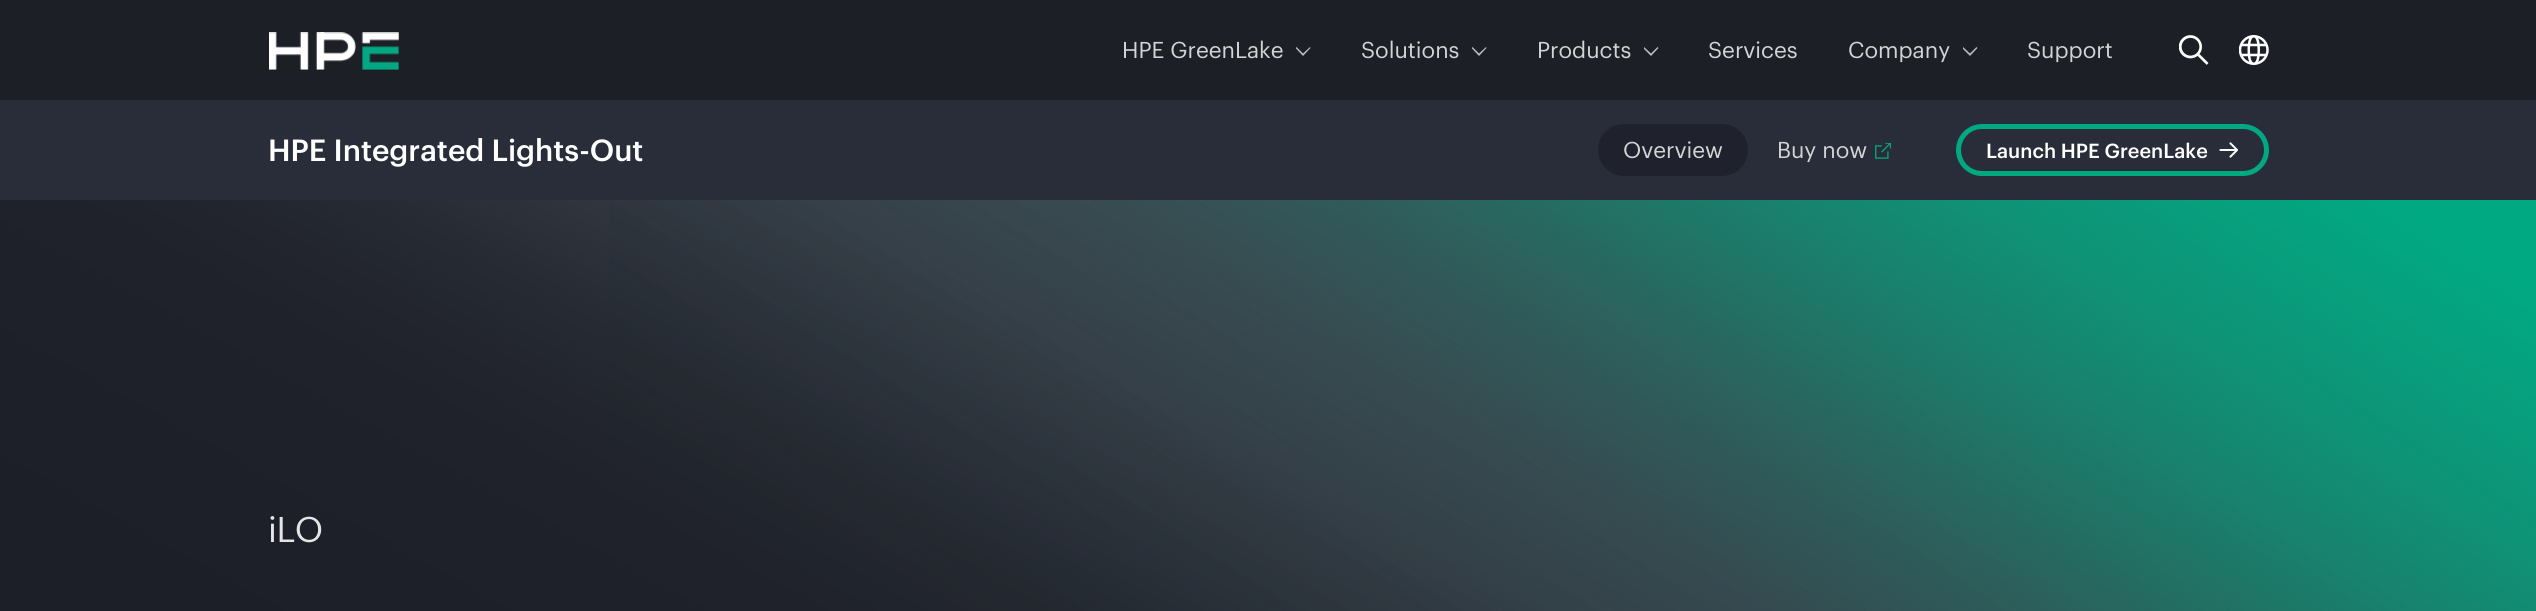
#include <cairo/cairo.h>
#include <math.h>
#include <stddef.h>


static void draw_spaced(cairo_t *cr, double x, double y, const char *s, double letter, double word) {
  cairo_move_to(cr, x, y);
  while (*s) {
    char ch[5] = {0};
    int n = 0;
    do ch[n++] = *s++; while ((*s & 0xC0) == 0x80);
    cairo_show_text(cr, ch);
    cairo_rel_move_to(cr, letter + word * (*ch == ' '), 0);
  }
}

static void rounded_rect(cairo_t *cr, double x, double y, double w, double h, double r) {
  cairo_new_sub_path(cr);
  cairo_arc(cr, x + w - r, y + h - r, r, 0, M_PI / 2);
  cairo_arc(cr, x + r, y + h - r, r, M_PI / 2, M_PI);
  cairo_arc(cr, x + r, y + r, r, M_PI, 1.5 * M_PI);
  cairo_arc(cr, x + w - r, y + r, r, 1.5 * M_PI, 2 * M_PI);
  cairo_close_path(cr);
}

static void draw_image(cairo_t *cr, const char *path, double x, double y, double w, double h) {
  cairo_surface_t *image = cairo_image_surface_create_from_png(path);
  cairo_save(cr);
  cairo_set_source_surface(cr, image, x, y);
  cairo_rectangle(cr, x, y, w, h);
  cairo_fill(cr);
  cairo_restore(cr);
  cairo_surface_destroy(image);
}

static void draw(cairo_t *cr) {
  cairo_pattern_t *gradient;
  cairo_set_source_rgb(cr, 29 / 255.0, 31 / 255.0, 39 / 255.0);
  cairo_paint(cr);
  draw_image(cr, "images/1.png", 269, 32, 130, 38);
  cairo_set_source_rgb(cr, 187 / 255.0, 187 / 255.0, 187 / 255.0);
  cairo_new_path(cr);
  cairo_move_to(cr, 1303, 56);
  cairo_line_to(cr, 1296, 48.5);
  cairo_line_to(cr, 1296, 47.5);
  cairo_line_to(cr, 1296.5, 47);
  cairo_line_to(cr, 1303, 53.5);
  cairo_line_to(cr, 1310, 47);
  cairo_line_to(cr, 1310.5, 48);
  cairo_close_path(cr);
  cairo_fill(cr);
  cairo_new_path(cr);
  cairo_move_to(cr, 1479, 56);
  cairo_line_to(cr, 1472, 48.5);
  cairo_line_to(cr, 1472, 47.5);
  cairo_line_to(cr, 1472.5, 47);
  cairo_line_to(cr, 1479, 53.5);
  cairo_line_to(cr, 1486, 47);
  cairo_line_to(cr, 1486.5, 48);
  cairo_close_path(cr);
  cairo_fill(cr);
  cairo_new_path(cr);
  cairo_move_to(cr, 1651, 56);
  cairo_line_to(cr, 1644, 49);
  cairo_line_to(cr, 1644, 47);
  cairo_line_to(cr, 1651, 53.5);
  cairo_line_to(cr, 1657.5, 47);
  cairo_line_to(cr, 1658.5, 48);
  cairo_close_path(cr);
  cairo_fill(cr);
  cairo_new_path(cr);
  cairo_move_to(cr, 1970, 56);
  cairo_line_to(cr, 1963, 49);
  cairo_line_to(cr, 1963, 47);
  cairo_line_to(cr, 1970, 53.5);
  cairo_line_to(cr, 1976.5, 47);
  cairo_line_to(cr, 1977.5, 48);
  cairo_close_path(cr);
  cairo_fill(cr);
  draw_image(cr, "images/2.png", 2179, 35, 30, 30);
  draw_image(cr, "images/3.png", 2239, 35, 30, 30);
  cairo_set_source_rgb(cr, 41 / 255.0, 45 / 255.0, 58 / 255.0);
  cairo_rectangle(cr, 0, 100, 2536, 100);
  cairo_fill(cr);
  cairo_set_source_rgb(cr, 31 / 255.0, 34 / 255.0, 45 / 255.0);
  rounded_rect(cr, 1598, 124, 150, 52, 26);
  cairo_fill(cr);
  draw_image(cr, "images/4.png", 1875, 143, 16, 16);
  rounded_rect(cr, 1958.5, 126.5, 308, 47, 23.5);
  cairo_set_source_rgb(cr, 1 / 255.0, 169 / 255.0, 130 / 255.0);
  cairo_set_line_width(cr, 5);
  cairo_stroke(cr);
  draw_image(cr, "images/5.png", 2219, 142, 19, 16);
  gradient = cairo_pattern_create_linear(1849, -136, 1138, 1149);
  cairo_pattern_add_color_stop_rgba(gradient, 0, 92 / 255.0, 102 / 255.0, 114 / 255.0, 1);
  cairo_pattern_add_color_stop_rgba(gradient, 0.14, 90 / 255.0, 100 / 255.0, 112 / 255.0, 1);
  cairo_pattern_add_color_stop_rgba(gradient, 0.25, 86 / 255.0, 95 / 255.0, 106 / 255.0, 1);
  cairo_pattern_add_color_stop_rgba(gradient, 0.34, 80 / 255.0, 89 / 255.0, 100 / 255.0, 1);
  cairo_pattern_add_color_stop_rgba(gradient, 0.42, 73 / 255.0, 81 / 255.0, 92 / 255.0, 1);
  cairo_pattern_add_color_stop_rgba(gradient, 0.48, 67 / 255.0, 73 / 255.0, 84 / 255.0, 1);
  cairo_pattern_add_color_stop_rgba(gradient, 0.54, 60 / 255.0, 66 / 255.0, 76 / 255.0, 1);
  cairo_pattern_add_color_stop_rgba(gradient, 0.58, 53 / 255.0, 58 / 255.0, 68 / 255.0, 1);
  cairo_pattern_add_color_stop_rgba(gradient, 0.62, 47 / 255.0, 52 / 255.0, 61 / 255.0, 1);
  cairo_pattern_add_color_stop_rgba(gradient, 0.66, 41 / 255.0, 46 / 255.0, 55 / 255.0, 1);
  cairo_pattern_add_color_stop_rgba(gradient, 0.7, 37 / 255.0, 41 / 255.0, 49 / 255.0, 1);
  cairo_pattern_add_color_stop_rgba(gradient, 0.74, 34 / 255.0, 37 / 255.0, 45 / 255.0, 1);
  cairo_pattern_add_color_stop_rgba(gradient, 0.79, 31 / 255.0, 34 / 255.0, 42 / 255.0, 1);
  cairo_pattern_add_color_stop_rgba(gradient, 0.85, 30 / 255.0, 33 / 255.0, 41 / 255.0, 1);
  cairo_pattern_add_color_stop_rgba(gradient, 0.92, 29 / 255.0, 32 / 255.0, 40 / 255.0, 1);
  cairo_pattern_add_color_stop_rgba(gradient, 1, 29 / 255.0, 31 / 255.0, 40 / 255.0, 1);
  cairo_set_source(cr, gradient);
  cairo_pattern_destroy(gradient);
  cairo_rectangle(cr, 0, 200, 2536, 411);
  cairo_fill(cr);
  gradient = cairo_pattern_create_linear(1097, 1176, 1930, -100);
  cairo_pattern_add_color_stop_rgba(gradient, 0, 28 / 255.0, 34 / 255.0, 41 / 255.0, 0);
  cairo_pattern_add_color_stop_rgba(gradient, 0.14, 28 / 255.0, 34 / 255.0, 41 / 255.0, 0.02);
  cairo_pattern_add_color_stop_rgba(gradient, 0.25, 28 / 255.0, 38 / 255.0, 44 / 255.0, 0.05);
  cairo_pattern_add_color_stop_rgba(gradient, 0.34, 26 / 255.0, 45 / 255.0, 48 / 255.0, 0.1);
  cairo_pattern_add_color_stop_rgba(gradient, 0.42, 25 / 255.0, 53 / 255.0, 53 / 255.0, 0.16);
  cairo_pattern_add_color_stop_rgba(gradient, 0.48, 23 / 255.0, 62 / 255.0, 59 / 255.0, 0.23);
  cairo_pattern_add_color_stop_rgba(gradient, 0.54, 21 / 255.0, 72 / 255.0, 66 / 255.0, 0.3);
  cairo_pattern_add_color_stop_rgba(gradient, 0.58, 18 / 255.0, 83 / 255.0, 74 / 255.0, 0.38);
  cairo_pattern_add_color_stop_rgba(gradient, 0.62, 16 / 255.0, 95 / 255.0, 81 / 255.0, 0.46);
  cairo_pattern_add_color_stop_rgba(gradient, 0.66, 14 / 255.0, 107 / 255.0, 89 / 255.0, 0.55);
  cairo_pattern_add_color_stop_rgba(gradient, 0.7, 11 / 255.0, 119 / 255.0, 97 / 255.0, 0.64);
  cairo_pattern_add_color_stop_rgba(gradient, 0.74, 9 / 255.0, 130 / 255.0, 104 / 255.0, 0.72);
  cairo_pattern_add_color_stop_rgba(gradient, 0.79, 7 / 255.0, 141 / 255.0, 112 / 255.0, 0.8);
  cairo_pattern_add_color_stop_rgba(gradient, 0.85, 5 / 255.0, 152 / 255.0, 119 / 255.0, 0.87);
  cairo_pattern_add_color_stop_rgba(gradient, 0.92, 3 / 255.0, 161 / 255.0, 125 / 255.0, 0.94);
  cairo_pattern_add_color_stop_rgba(gradient, 1, 1 / 255.0, 169 / 255.0, 130 / 255.0, 1);
  cairo_set_source(cr, gradient);
  cairo_pattern_destroy(gradient);
  cairo_rectangle(cr, 609, 200, 1927, 411);
  cairo_fill(cr);
  cairo_select_font_face(cr, "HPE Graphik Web", CAIRO_FONT_SLANT_NORMAL, CAIRO_FONT_WEIGHT_NORMAL);
  cairo_set_font_size(cr, 22.5);
  cairo_set_source_rgb(cr, 212 / 255.0, 212 / 255.0, 212 / 255.0);
  cairo_move_to(cr, 1122, 58);
  cairo_show_text(cr, "HPE GreenLake");
  cairo_move_to(cr, 1361, 58);
  cairo_show_text(cr, "Solutions");
  cairo_move_to(cr, 1537, 58);
  cairo_show_text(cr, "Products");
  cairo_move_to(cr, 1708, 58);
  cairo_show_text(cr, "Services");
  cairo_move_to(cr, 1848, 58);
  cairo_show_text(cr, "Company");
  cairo_move_to(cr, 2027, 58);
  cairo_show_text(cr, "Support");
  cairo_select_font_face(cr, "HPE Graphik Web Medium", CAIRO_FONT_SLANT_NORMAL, CAIRO_FONT_WEIGHT_NORMAL);
  cairo_set_font_size(cr, 30);
  cairo_set_source_rgb(cr, 1, 1, 1);
  cairo_move_to(cr, 268, 161);
  cairo_show_text(cr, "HPE Integrated Lights-Out");
  cairo_select_font_face(cr, "HPE Graphik Web", CAIRO_FONT_SLANT_NORMAL, CAIRO_FONT_WEIGHT_NORMAL);
  cairo_set_font_size(cr, 22.5);
  cairo_set_source_rgb(cr, 212 / 255.0, 212 / 255.0, 212 / 255.0);
  cairo_move_to(cr, 1623, 158);
  cairo_show_text(cr, "Overview");
  cairo_move_to(cr, 1777, 158);
  cairo_show_text(cr, "Buy now");
  cairo_select_font_face(cr, "HPE Graphik Web Medium", CAIRO_FONT_SLANT_NORMAL, CAIRO_FONT_WEIGHT_NORMAL);
  cairo_set_font_size(cr, 20);
  cairo_set_source_rgb(cr, 1, 1, 1);
  cairo_move_to(cr, 1986, 158);
  cairo_show_text(cr, "Launch HPE GreenLake");
  cairo_select_font_face(cr, "HPE Graphik Web", CAIRO_FONT_SLANT_NORMAL, CAIRO_FONT_WEIGHT_NORMAL);
  cairo_set_font_size(cr, 35);
  cairo_set_source_rgb(cr, 229 / 255.0, 229 / 255.0, 229 / 255.0);
  draw_spaced(cr, 268, 542, "iLO", -0.5, 0);
}

int main(void) {
  cairo_surface_t *surface = cairo_image_surface_create(CAIRO_FORMAT_RGB24, 2536, 611);
  cairo_t *cr = cairo_create(surface);
  cairo_font_options_t *options = cairo_font_options_create();
  cairo_font_options_set_hint_metrics(options, CAIRO_HINT_METRICS_OFF);
  cairo_font_options_set_hint_style(options, CAIRO_HINT_STYLE_NONE);
  cairo_set_font_options(cr, options);
  cairo_set_miter_limit(cr, 4);
  draw(cr);
  cairo_surface_write_to_png(surface, "out.png");
  cairo_font_options_destroy(options);
  cairo_destroy(cr);
  cairo_surface_destroy(surface);
  return 0;
}
